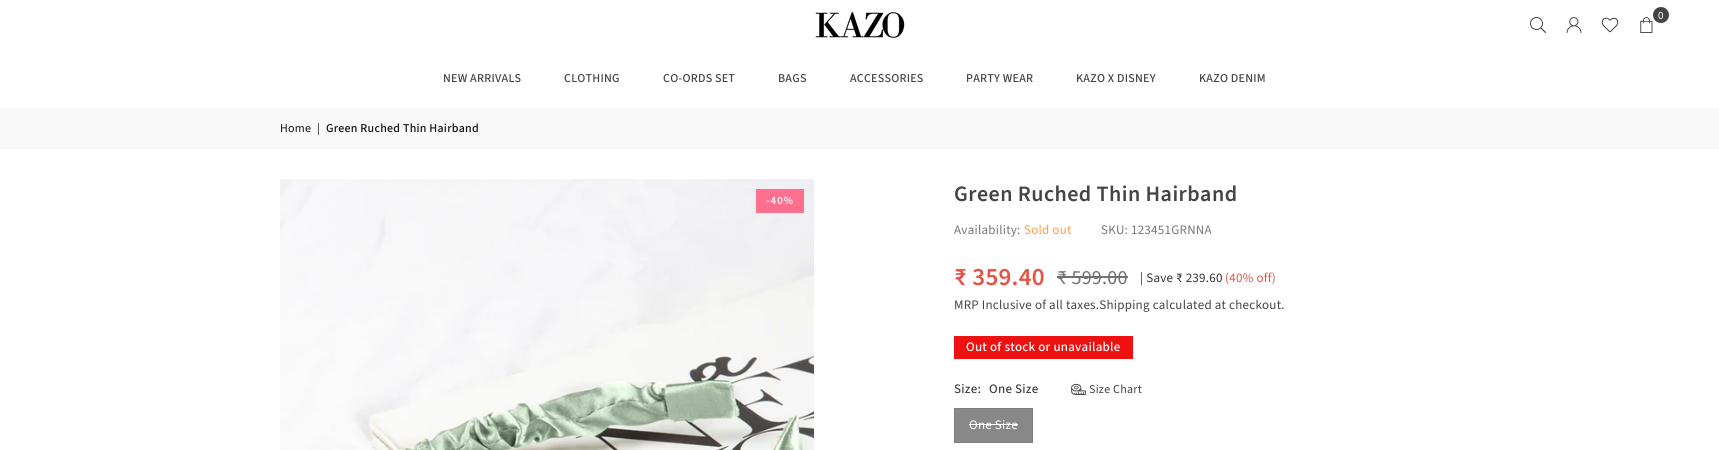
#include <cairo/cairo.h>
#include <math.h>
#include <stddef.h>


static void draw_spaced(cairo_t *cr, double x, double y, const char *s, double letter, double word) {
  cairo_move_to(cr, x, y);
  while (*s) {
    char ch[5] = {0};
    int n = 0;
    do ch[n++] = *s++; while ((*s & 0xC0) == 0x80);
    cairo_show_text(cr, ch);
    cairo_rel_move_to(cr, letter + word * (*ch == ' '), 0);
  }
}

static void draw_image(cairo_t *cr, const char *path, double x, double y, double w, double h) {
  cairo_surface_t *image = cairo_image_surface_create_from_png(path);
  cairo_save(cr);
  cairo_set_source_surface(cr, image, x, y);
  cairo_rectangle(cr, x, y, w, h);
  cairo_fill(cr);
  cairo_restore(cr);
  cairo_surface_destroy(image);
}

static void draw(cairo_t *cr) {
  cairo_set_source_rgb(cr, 1, 1, 1);
  cairo_paint(cr);
  draw_image(cr, "images/1.png", 815, 12, 90, 26);
  cairo_set_source_rgb(cr, 68 / 255.0, 68 / 255.0, 68 / 255.0);
  cairo_arc(cr, 1661, 15, 8, 0, 2 * M_PI);
  cairo_fill(cr);
  draw_image(cr, "images/2.png", 1640, 17, 13, 16);
  draw_image(cr, "images/3.png", 1530, 17, 16, 16);
  draw_image(cr, "images/4.png", 1566, 17, 16, 16);
  draw_image(cr, "images/5.png", 1601, 17, 18, 16);
  cairo_set_source_rgb(cr, 249 / 255.0, 249 / 255.0, 249 / 255.0);
  cairo_rectangle(cr, 0, 108, 1719, 41);
  cairo_fill(cr);
  draw_image(cr, "images/6.png", 280, 179, 534, 271);
  cairo_set_source_rgb(cr, 1, 112 / 255.0, 142 / 255.0);
  cairo_rectangle(cr, 756, 189, 48, 24);
  cairo_fill(cr);
  cairo_set_source_rgb(cr, 112 / 255.0, 112 / 255.0, 112 / 255.0);
  cairo_rectangle(cr, 1057, 276, 71, 2);
  cairo_fill(cr);
  cairo_set_source_rgb(cr, 238 / 255.0, 17 / 255.0, 17 / 255.0);
  cairo_rectangle(cr, 954, 336, 179, 23);
  cairo_fill(cr);
  draw_image(cr, "images/7.png", 1071, 383, 15, 12);
  cairo_set_source_rgb(cr, 136 / 255.0, 136 / 255.0, 136 / 255.0);
  cairo_rectangle(cr, 954.5, 408.5, 78, 34);
  cairo_fill_preserve(cr);
  cairo_set_source_rgb(cr, 128 / 255.0, 128 / 255.0, 128 / 255.0);
  cairo_set_line_width(cr, 1);
  cairo_stroke(cr);
  cairo_set_source_rgb(cr, 1, 1, 1);
  cairo_rectangle(cr, 969, 424, 49, 1);
  cairo_fill(cr);
  cairo_select_font_face(cr, "Source Sans Pro", CAIRO_FONT_SLANT_NORMAL, CAIRO_FONT_WEIGHT_NORMAL);
  cairo_set_font_size(cr, 11);
  draw_spaced(cr, 1658, 19, "0", 0.25, 0);
  cairo_select_font_face(cr, "Source Sans Pro Medium", CAIRO_FONT_SLANT_NORMAL, CAIRO_FONT_WEIGHT_NORMAL);
  cairo_set_font_size(cr, 12);
  cairo_set_source_rgb(cr, 68 / 255.0, 68 / 255.0, 68 / 255.0);
  draw_spaced(cr, 443, 82, "NEW ARRIVALS", 0.25, 0);
  draw_spaced(cr, 564, 82, "CLOTHING", 0.25, 0);
  draw_spaced(cr, 663, 82, "CO-ORDS SET", 0.25, 0);
  draw_spaced(cr, 778, 82, "BAGS", 0.25, 0);
  draw_spaced(cr, 850, 82, "ACCESSORIES", 0.25, 0);
  draw_spaced(cr, 966, 82, "PARTY WEAR", 0.25, 0);
  draw_spaced(cr, 1076, 82, "KAZO X DISNEY", 0.25, 0);
  draw_spaced(cr, 1199, 82, "KAZO DENIM", 0.25, 0);
  cairo_select_font_face(cr, "Source Sans Pro", CAIRO_FONT_SLANT_NORMAL, CAIRO_FONT_WEIGHT_NORMAL);
  cairo_set_source_rgb(cr, 17 / 255.0, 17 / 255.0, 17 / 255.0);
  draw_spaced(cr, 280, 132, "Home", 0.25, 0);
  draw_spaced(cr, 317, 132, "|", 0.25, 0);
  cairo_select_font_face(cr, "Source Sans Pro Medium", CAIRO_FONT_SLANT_NORMAL, CAIRO_FONT_WEIGHT_NORMAL);
  draw_spaced(cr, 326, 132, "Green Ruched Thin Hairband", 0.25, 0);
  cairo_select_font_face(cr, "Source Sans Pro SemiBold", CAIRO_FONT_SLANT_NORMAL, CAIRO_FONT_WEIGHT_NORMAL);
  cairo_set_font_size(cr, 11);
  cairo_set_source_rgb(cr, 1, 1, 1);
  draw_spaced(cr, 766, 204, "-40%", 1, 0);
  cairo_set_font_size(cr, 22);
  cairo_set_source_rgb(cr, 68 / 255.0, 68 / 255.0, 68 / 255.0);
  draw_spaced(cr, 954, 201, "Green Ruched Thin Hairband", 0.45, 0);
  cairo_select_font_face(cr, "Source Sans Pro", CAIRO_FONT_SLANT_NORMAL, CAIRO_FONT_WEIGHT_NORMAL);
  cairo_set_font_size(cr, 13);
  cairo_set_source_rgb(cr, 119 / 255.0, 119 / 255.0, 119 / 255.0);
  draw_spaced(cr, 954, 234, "Availability:", 0.25, 0);
  cairo_set_source_rgb(cr, 1, 159 / 255.0, 59 / 255.0);
  draw_spaced(cr, 1024, 234, "Sold out", 0.25, 0);
  cairo_set_source_rgb(cr, 119 / 255.0, 119 / 255.0, 119 / 255.0);
  draw_spaced(cr, 1101, 234, "SKU: 123451GRNNA", 0.25, 0);
  cairo_select_font_face(cr, "Source Sans Pro SemiBold", CAIRO_FONT_SLANT_NORMAL, CAIRO_FONT_WEIGHT_NORMAL);
  cairo_set_font_size(cr, 25);
  cairo_set_source_rgb(cr, 233 / 255.0, 81 / 255.0, 68 / 255.0);
  draw_spaced(cr, 954, 285, "₹ 359.40", 0.25, 0);
  cairo_select_font_face(cr, "Source Sans Pro", CAIRO_FONT_SLANT_NORMAL, CAIRO_FONT_WEIGHT_NORMAL);
  cairo_set_font_size(cr, 20);
  cairo_set_source_rgb(cr, 112 / 255.0, 112 / 255.0, 112 / 255.0);
  draw_spaced(cr, 1057, 284, "₹ 599.00", 0.25, 0);
  cairo_set_font_size(cr, 13);
  cairo_set_source_rgb(cr, 51 / 255.0, 51 / 255.0, 51 / 255.0);
  draw_spaced(cr, 1140, 282, "| Save ₹ 239.60", 0.25, 0);
  cairo_set_source_rgb(cr, 233 / 255.0, 81 / 255.0, 68 / 255.0);
  draw_spaced(cr, 1225, 282, "(40% off)", 0.25, 0);
  cairo_set_source_rgb(cr, 68 / 255.0, 68 / 255.0, 68 / 255.0);
  draw_spaced(cr, 954, 309, "MRP Inclusive of all taxes.Shipping calculated at checkout.", 0.25, 0);
  cairo_select_font_face(cr, "Source Sans Pro Medium", CAIRO_FONT_SLANT_NORMAL, CAIRO_FONT_WEIGHT_NORMAL);
  cairo_set_source_rgb(cr, 1, 1, 1);
  draw_spaced(cr, 966, 351, "Out of stock or unavailable", 0.25, 0);
  cairo_set_source_rgb(cr, 68 / 255.0, 68 / 255.0, 68 / 255.0);
  draw_spaced(cr, 954, 393, "Size:", 0.25, 0);
  draw_spaced(cr, 989, 393, "One Size", 0.25, 0);
  cairo_select_font_face(cr, "Source Sans Pro", CAIRO_FONT_SLANT_NORMAL, CAIRO_FONT_WEIGHT_NORMAL);
  cairo_set_font_size(cr, 12);
  draw_spaced(cr, 1089, 393, "Size Chart", 0.25, 0);
  cairo_set_font_size(cr, 13);
  cairo_set_source_rgb(cr, 1, 1, 1);
  draw_spaced(cr, 969, 429, "One Size", 0.25, 0);
}

int main(void) {
  cairo_surface_t *surface = cairo_image_surface_create(CAIRO_FORMAT_RGB24, 1719, 450);
  cairo_t *cr = cairo_create(surface);
  cairo_font_options_t *options = cairo_font_options_create();
  cairo_font_options_set_hint_metrics(options, CAIRO_HINT_METRICS_OFF);
  cairo_font_options_set_hint_style(options, CAIRO_HINT_STYLE_NONE);
  cairo_set_font_options(cr, options);
  cairo_set_miter_limit(cr, 4);
  draw(cr);
  cairo_surface_write_to_png(surface, "out.png");
  cairo_font_options_destroy(options);
  cairo_destroy(cr);
  cairo_surface_destroy(surface);
  return 0;
}
